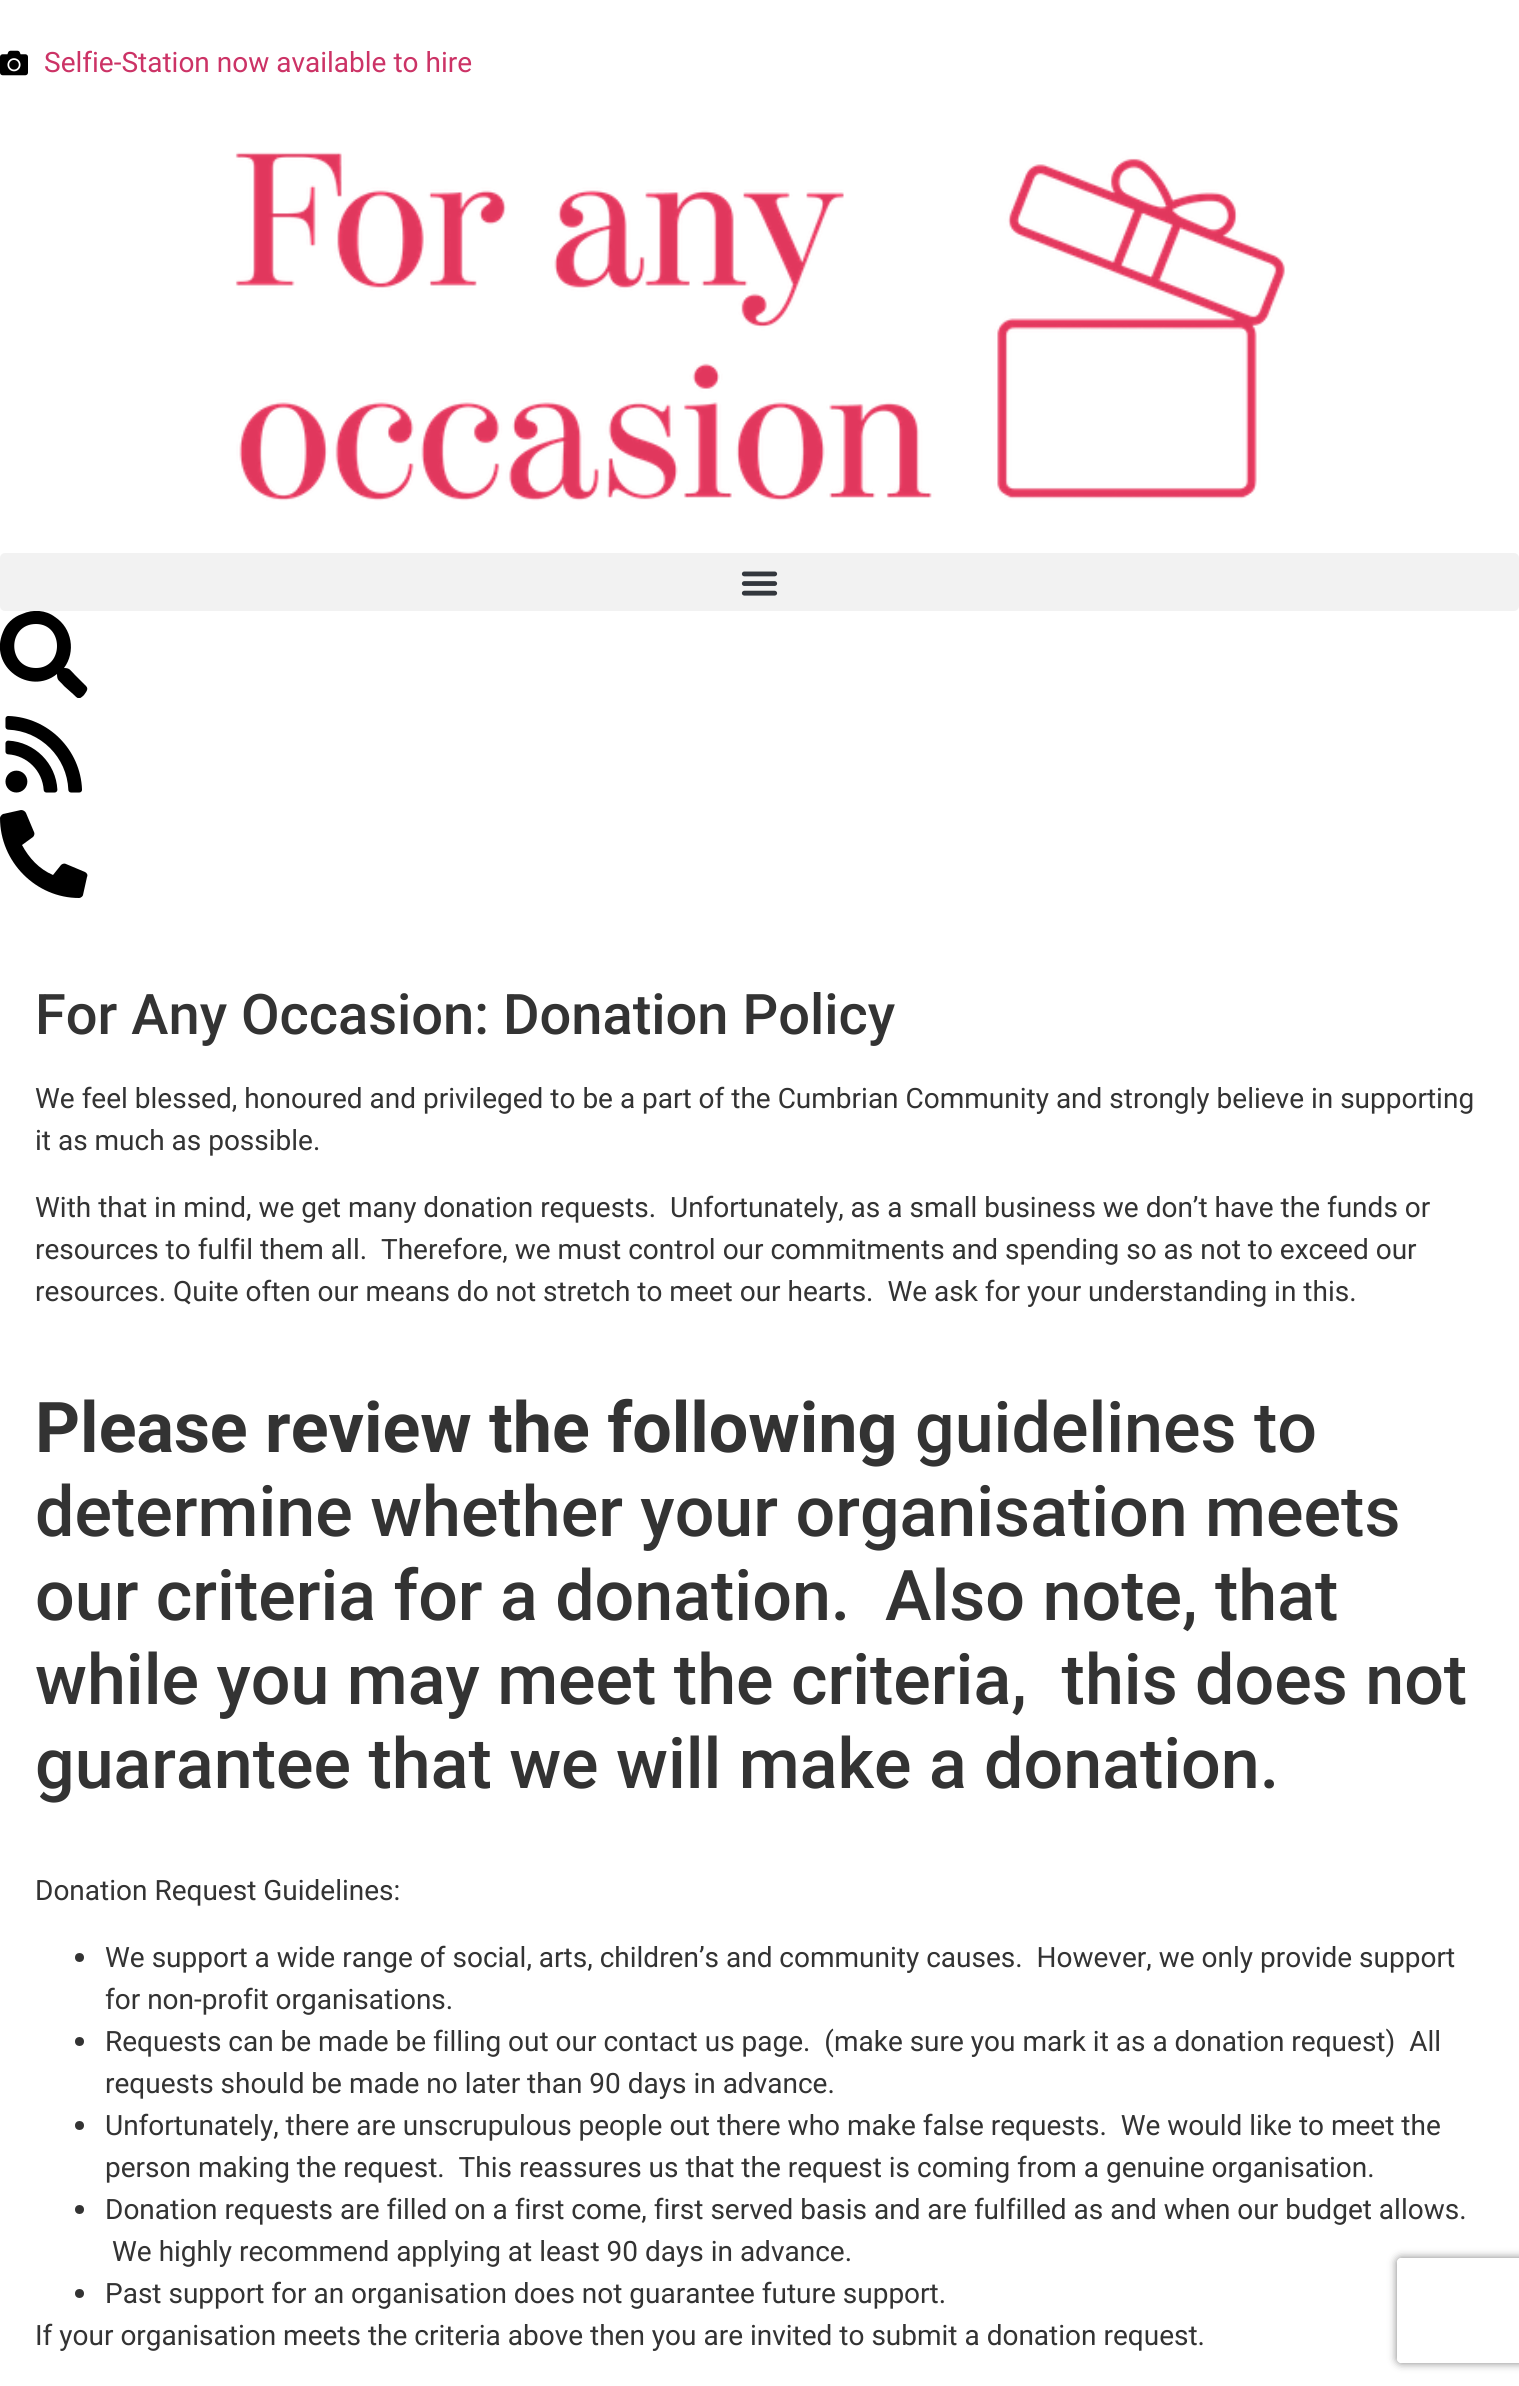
#include <cairo/cairo.h>
#include <math.h>
#include <stddef.h>


static void rounded_rect(cairo_t *cr, double x, double y, double w, double h, double r) {
  cairo_new_sub_path(cr);
  cairo_arc(cr, x + w - r, y + h - r, r, 0, M_PI / 2);
  cairo_arc(cr, x + r, y + h - r, r, M_PI / 2, M_PI);
  cairo_arc(cr, x + r, y + r, r, M_PI, 1.5 * M_PI);
  cairo_arc(cr, x + w - r, y + r, r, 1.5 * M_PI, 2 * M_PI);
  cairo_close_path(cr);
}

static void draw_shadow(cairo_t *cr, double x, double y, double w, double h, double r, double blur, double alpha) {
  cairo_push_group_with_content(cr, CAIRO_CONTENT_ALPHA);
  cairo_set_operator(cr, CAIRO_OPERATOR_SOURCE);
  for (int i = 15; i >= -15 && fmin(w, h) + blur * i / 3 > 0; i -= 2) {
    double e = blur * i / 6;
    cairo_set_source_rgba(cr, 0, 0, 0, alpha * erfc((i - 1) / 8.5) / 2);
    rounded_rect(cr, x - e, y - e, w + 2 * e, h + 2 * e, fmax(0, fmin(r + e + blur * .6, fmin(w, h) / 2 + e)));
    cairo_fill(cr);
  }
  cairo_pattern_t *soft = cairo_pop_group(cr);
  cairo_mask(cr, soft);
  cairo_pattern_destroy(soft);
}

static void draw_image(cairo_t *cr, const char *path, double x, double y, double w, double h) {
  cairo_surface_t *image = cairo_image_surface_create_from_png(path);
  cairo_save(cr);
  cairo_set_source_surface(cr, image, x, y);
  cairo_rectangle(cr, x, y, w, h);
  cairo_fill(cr);
  cairo_restore(cr);
  cairo_surface_destroy(image);
}

static void draw(cairo_t *cr) {
  cairo_set_source_rgb(cr, 1, 1, 1);
  cairo_paint(cr);
  draw_image(cr, "images/1.png", 0, 50, 28, 26);
  draw_image(cr, "images/2.png", 235, 152, 1050, 349);
  cairo_set_source_rgb(cr, 242 / 255.0, 242 / 255.0, 242 / 255.0);
  rounded_rect(cr, 0, 553, 1519, 58, 5);
  cairo_fill(cr);
  draw_image(cr, "images/3.png", 741, 571, 37, 25);
  cairo_save(cr);
  cairo_rectangle(cr, 0, 611, 88, 87);
  cairo_clip(cr);
  cairo_set_source_rgb(cr, 0, 0, 0);
  cairo_new_path(cr);
  cairo_move_to(cr, 86, 686);
  cairo_line_to(cr, 75, 675);
  cairo_curve_to(cr, 70, 670, 70, 668, 64, 668);
  cairo_curve_to(cr, 76, 652, 72, 628, 55, 617);
  cairo_curve_to(cr, 46, 610, 33, 609, 22, 614);
  cairo_curve_to(cr, 13, 617, 6, 624, 3, 632);
  cairo_curve_to(cr, -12, 667, 30, 696, 57, 674);
  cairo_curve_to(cr, 57, 681, 59, 680, 64, 686);
  cairo_line_to(cr, 73, 694);
  cairo_curve_to(cr, 78, 699, 79, 700, 84, 695);
  cairo_curve_to(cr, 86, 692, 89, 689, 86, 686);
  cairo_close_path(cr);
  cairo_move_to(cr, 36, 668);
  cairo_curve_to(cr, 7, 668, 7, 624, 36, 624);
  cairo_curve_to(cr, 64, 624, 64, 668, 36, 668);
  cairo_close_path(cr);
  cairo_fill(cr);
  cairo_restore(cr);
  draw_image(cr, "images/4.png", 5, 716, 77, 77);
  cairo_set_source_rgb(cr, 0, 0, 0);
  cairo_new_path(cr);
  cairo_move_to(cr, 85, 872);
  cairo_line_to(cr, 66, 864);
  cairo_curve_to(cr, 64, 863, 62, 864, 61, 865);
  cairo_line_to(cr, 53, 875);
  cairo_curve_to(cr, 39, 869, 29, 858, 22, 845);
  cairo_line_to(cr, 33, 837);
  cairo_curve_to(cr, 34, 836, 35, 834, 34, 832);
  cairo_line_to(cr, 26, 813);
  cairo_curve_to(cr, 25, 811, 23, 810, 21, 810);
  cairo_line_to(cr, 3, 814);
  cairo_curve_to(cr, 1, 815, 0, 817, 0, 818);
  cairo_curve_to(cr, 0, 862, 36, 898, 79, 898);
  cairo_curve_to(cr, 81, 898, 83, 896, 83, 895);
  cairo_line_to(cr, 87, 877);
  cairo_curve_to(cr, 88, 875, 87, 873, 85, 872);
  cairo_close_path(cr);
  cairo_fill(cr);
  cairo_set_source_rgb(cr, 51 / 255.0, 51 / 255.0, 51 / 255.0);
  cairo_arc(cr, 79.5, 1957.5, 4.5, 0, 2 * M_PI);
  cairo_fill(cr);
  cairo_arc(cr, 79.5, 2041.5, 4.5, 0, 2 * M_PI);
  cairo_fill(cr);
  cairo_arc(cr, 79.5, 2125.5, 4.5, 0, 2 * M_PI);
  cairo_fill(cr);
  cairo_arc(cr, 79.5, 2209.5, 4.5, 0, 2 * M_PI);
  cairo_fill(cr);
  cairo_arc(cr, 79.5, 2293.5, 4.5, 0, 2 * M_PI);
  cairo_fill(cr);
  cairo_save(cr);
  cairo_set_fill_rule(cr, CAIRO_FILL_RULE_EVEN_ODD);
  cairo_new_path(cr);
  cairo_move_to(cr, 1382, 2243);
  cairo_line_to(cr, 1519, 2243);
  cairo_line_to(cr, 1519, 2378);
  cairo_line_to(cr, 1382, 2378);
  cairo_close_path(cr);
  cairo_move_to(cr, 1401, 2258);
  cairo_line_to(cr, 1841, 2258);
  cairo_curve_to(cr, 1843, 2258, 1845, 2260, 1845, 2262);
  cairo_line_to(cr, 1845, 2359);
  cairo_curve_to(cr, 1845, 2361, 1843, 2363, 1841, 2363);
  cairo_line_to(cr, 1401, 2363);
  cairo_curve_to(cr, 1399, 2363, 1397, 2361, 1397, 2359);
  cairo_line_to(cr, 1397, 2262);
  cairo_curve_to(cr, 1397, 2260, 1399, 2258, 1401, 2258);
  cairo_close_path(cr);
  cairo_clip(cr);
  cairo_set_source_rgb(cr, 128 / 255.0, 128 / 255.0, 128 / 255.0);
  draw_shadow(cr, 1397, 2258, 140, 105, 4, 4.5, 1);
  cairo_restore(cr);
  cairo_select_font_face(cr, "Roboto", CAIRO_FONT_SLANT_NORMAL, CAIRO_FONT_WEIGHT_NORMAL);
  cairo_set_font_size(cr, 28);
  cairo_set_source_rgb(cr, 204 / 255.0, 51 / 255.0, 102 / 255.0);
  cairo_move_to(cr, 44, 72);
  cairo_show_text(cr, "Selfie-Station now available to hire");
  cairo_select_font_face(cr, "Roboto Medium", CAIRO_FONT_SLANT_NORMAL, CAIRO_FONT_WEIGHT_NORMAL);
  cairo_set_font_size(cr, 56);
  cairo_set_source_rgb(cr, 51 / 255.0, 51 / 255.0, 51 / 255.0);
  cairo_move_to(cr, 35, 1034);
  cairo_show_text(cr, "For Any Occasion: Donation Policy");
  cairo_select_font_face(cr, "Roboto", CAIRO_FONT_SLANT_NORMAL, CAIRO_FONT_WEIGHT_NORMAL);
  cairo_set_font_size(cr, 28);
  cairo_move_to(cr, 35, 1108);
  cairo_show_text(cr, "We feel blessed, honoured and privileged to be a part of the Cumbrian Community and strongly believe in supporting");
  cairo_move_to(cr, 35, 1150);
  cairo_show_text(cr, "it as much as possible.");
  cairo_move_to(cr, 35, 1217);
  cairo_show_text(cr, "With that in mind, we get many donation requests.  Unfortunately, as a small business we don’t have the funds or");
  cairo_move_to(cr, 35, 1259);
  cairo_show_text(cr, "resources to fulfil them all.  Therefore, we must control our commitments and spending so as not to exceed our");
  cairo_move_to(cr, 35, 1301);
  cairo_show_text(cr, "resources. Quite often our means do not stretch to meet our hearts.  We ask for your understanding in this.");
  cairo_select_font_face(cr, "Roboto", CAIRO_FONT_SLANT_NORMAL, CAIRO_FONT_WEIGHT_BOLD);
  cairo_set_font_size(cr, 70);
  cairo_move_to(cr, 35, 1452);
  cairo_show_text(cr, "Please review the following");
  cairo_select_font_face(cr, "Roboto Medium", CAIRO_FONT_SLANT_NORMAL, CAIRO_FONT_WEIGHT_NORMAL);
  cairo_move_to(cr, 915, 1452);
  cairo_show_text(cr, "guidelines to");
  cairo_move_to(cr, 35, 1536);
  cairo_show_text(cr, "determine whether your organisation meets");
  cairo_move_to(cr, 35, 1620);
  cairo_show_text(cr, "our criteria for a donation.  Also note, that");
  cairo_move_to(cr, 35, 1704);
  cairo_show_text(cr, "while you may meet the criteria,  this does not");
  cairo_move_to(cr, 35, 1788);
  cairo_show_text(cr, "guarantee that we will make a donation.");
  cairo_select_font_face(cr, "Roboto", CAIRO_FONT_SLANT_NORMAL, CAIRO_FONT_WEIGHT_NORMAL);
  cairo_set_font_size(cr, 28);
  cairo_move_to(cr, 35, 1900);
  cairo_show_text(cr, "Donation Request Guidelines:");
  cairo_move_to(cr, 105, 1967);
  cairo_show_text(cr, "We support a wide range of social, arts, children’s and community causes.  However, we only provide support");
  cairo_move_to(cr, 105, 2009);
  cairo_show_text(cr, "for non-profit organisations.");
  cairo_move_to(cr, 105, 2051);
  cairo_show_text(cr, "Requests can be made be filling out our contact us page.  (make sure you mark it as a donation request)  All");
  cairo_move_to(cr, 105, 2093);
  cairo_show_text(cr, "requests should be made no later than 90 days in advance.");
  cairo_move_to(cr, 105, 2135);
  cairo_show_text(cr, "Unfortunately, there are unscrupulous people out there who make false requests.  We would like to meet the");
  cairo_move_to(cr, 105, 2177);
  cairo_show_text(cr, "person making the request.  This reassures us that the request is coming from a genuine organisation.");
  cairo_move_to(cr, 105, 2219);
  cairo_show_text(cr, "Donation requests are filled on a first come, first served basis and are fulfilled as and when our budget allows.");
  cairo_move_to(cr, 112, 2261);
  cairo_show_text(cr, "We highly recommend applying at least 90 days in advance.");
  cairo_move_to(cr, 105, 2303);
  cairo_show_text(cr, "Past support for an organisation does not guarantee future support.");
  cairo_move_to(cr, 35, 2345);
  cairo_show_text(cr, "If your organisation meets the criteria above then you are invited to submit a donation request.");
}

int main(void) {
  cairo_surface_t *surface = cairo_image_surface_create(CAIRO_FORMAT_RGB24, 1519, 2386);
  cairo_t *cr = cairo_create(surface);
  cairo_font_options_t *options = cairo_font_options_create();
  cairo_font_options_set_hint_metrics(options, CAIRO_HINT_METRICS_OFF);
  cairo_font_options_set_hint_style(options, CAIRO_HINT_STYLE_NONE);
  cairo_set_font_options(cr, options);
  cairo_set_miter_limit(cr, 4);
  draw(cr);
  cairo_surface_write_to_png(surface, "out.png");
  cairo_font_options_destroy(options);
  cairo_destroy(cr);
  cairo_surface_destroy(surface);
  return 0;
}
